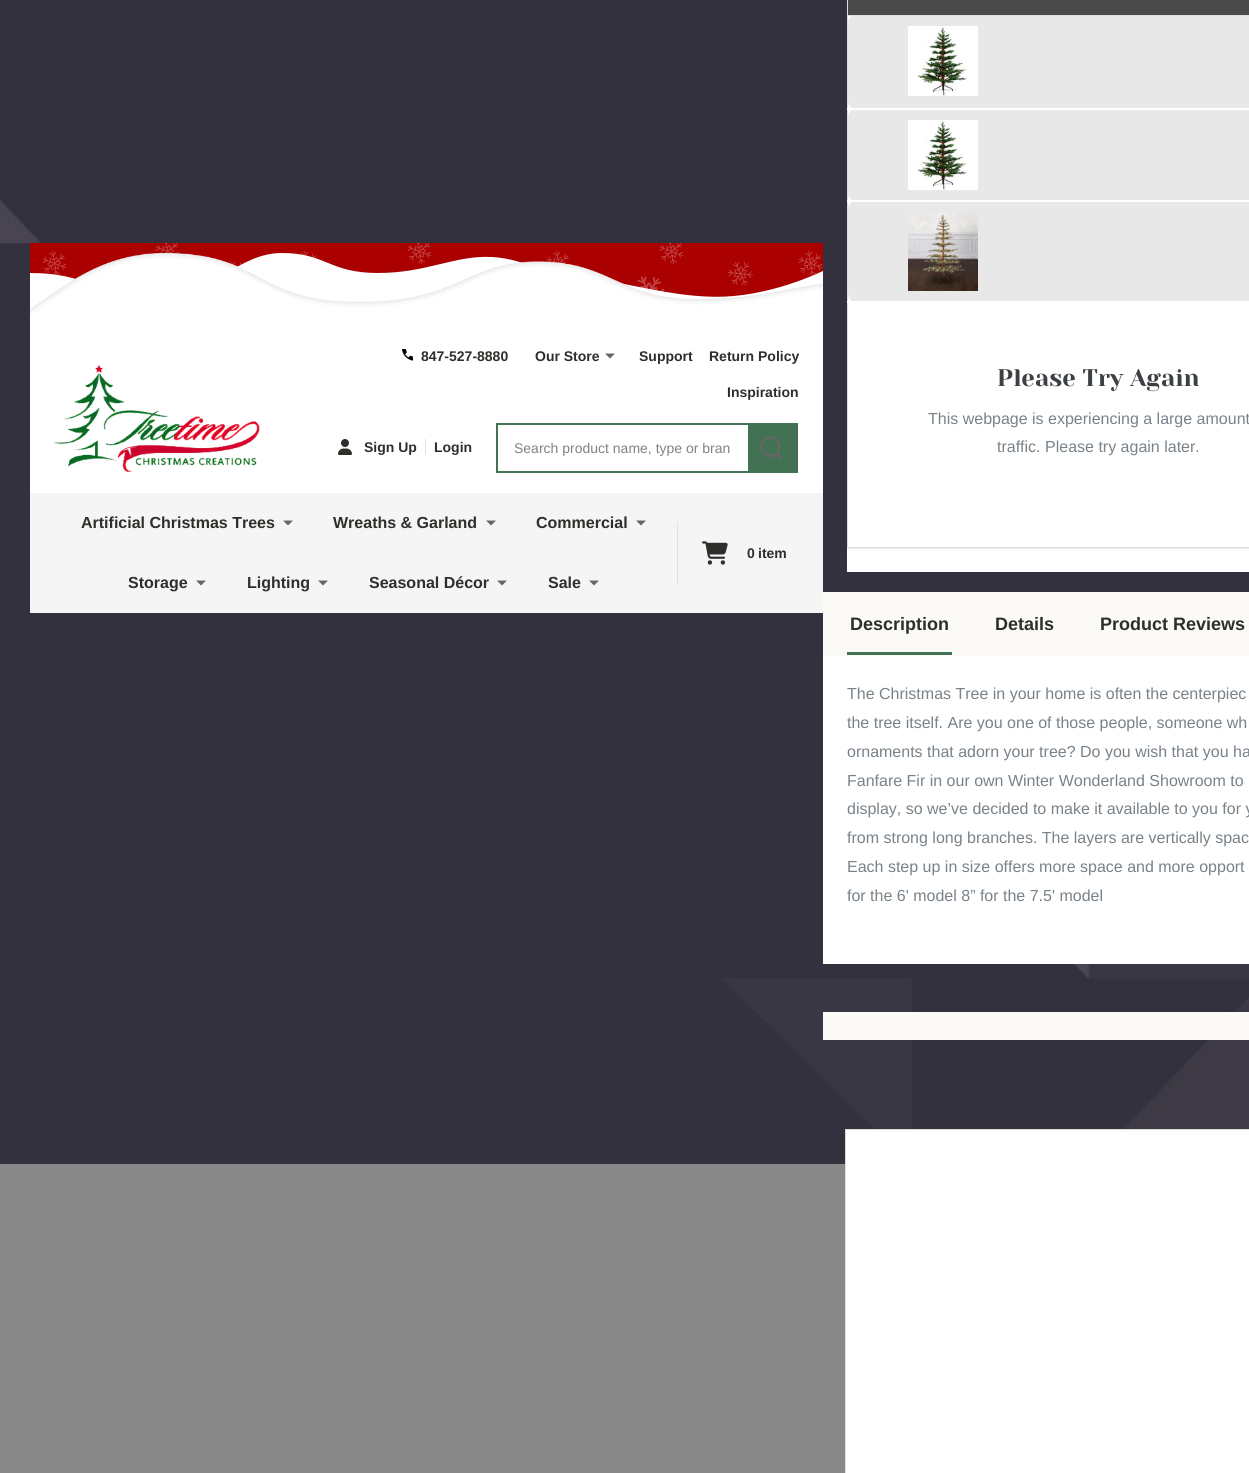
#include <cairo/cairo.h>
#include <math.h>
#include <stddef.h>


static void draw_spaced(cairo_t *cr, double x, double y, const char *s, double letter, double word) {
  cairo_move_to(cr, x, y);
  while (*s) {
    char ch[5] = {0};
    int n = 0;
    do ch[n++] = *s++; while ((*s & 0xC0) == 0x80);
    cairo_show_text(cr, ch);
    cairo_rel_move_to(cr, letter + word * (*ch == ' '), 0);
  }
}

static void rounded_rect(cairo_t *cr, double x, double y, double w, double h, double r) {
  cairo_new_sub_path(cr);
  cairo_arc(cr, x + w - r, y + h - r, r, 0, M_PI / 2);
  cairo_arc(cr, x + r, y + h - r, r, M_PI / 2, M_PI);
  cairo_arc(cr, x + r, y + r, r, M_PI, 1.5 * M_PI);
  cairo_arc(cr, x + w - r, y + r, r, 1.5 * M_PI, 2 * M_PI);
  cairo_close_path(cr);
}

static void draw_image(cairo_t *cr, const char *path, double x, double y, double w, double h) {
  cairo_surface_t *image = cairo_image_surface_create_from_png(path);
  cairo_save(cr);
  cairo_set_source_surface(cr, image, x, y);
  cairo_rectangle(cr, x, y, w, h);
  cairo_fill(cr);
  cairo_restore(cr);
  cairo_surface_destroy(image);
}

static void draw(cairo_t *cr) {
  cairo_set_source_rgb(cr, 136 / 255.0, 136 / 255.0, 136 / 255.0);
  cairo_paint(cr);
  draw_image(cr, "images/1.png", 0, 0, 1249, 1164);
  draw_image(cr, "images/2.png", 30, 243, 793, 54);
  cairo_save(cr);
  cairo_rectangle(cr, 30, 253, 793, 57);
  cairo_clip(cr);
  cairo_set_source_rgb(cr, 1, 1, 1);
  cairo_new_path(cr);
  cairo_move_to(cr, 30, 273);
  cairo_curve_to(cr, 90, 273, 91, 295, 154, 295);
  cairo_curve_to(cr, 216, 295, 237, 253, 282, 253);
  cairo_curve_to(cr, 326, 253, 329, 273, 378, 273);
  cairo_curve_to(cr, 427, 273, 455, 255, 492, 257);
  cairo_curve_to(cr, 529, 259, 544, 278, 597, 280);
  cairo_curve_to(cr, 623, 281, 683, 301, 734, 296);
  cairo_curve_to(cr, 787, 291, 831, 267, 831, 267);
  cairo_line_to(cr, 831, 309);
  cairo_line_to(cr, 30, 311);
  cairo_close_path(cr);
  cairo_fill(cr);
  cairo_restore(cr);
  draw_image(cr, "images/3.png", 30, 253, 793, 240);
  draw_image(cr, "images/4.png", 54, 365, 206, 107);
  draw_image(cr, "images/5.png", 402, 349, 11, 12);
  cairo_set_source_rgb(cr, 102 / 255.0, 102 / 255.0, 102 / 255.0);
  cairo_new_path(cr);
  cairo_move_to(cr, 605, 353.5);
  cairo_line_to(cr, 610, 358.5);
  cairo_line_to(cr, 615, 353.5);
  cairo_close_path(cr);
  cairo_fill(cr);
  draw_image(cr, "images/6.png", 338, 439, 14, 16);
  cairo_set_source_rgb(cr, 224 / 255.0, 224 / 255.0, 223 / 255.0);
  cairo_rectangle(cr, 425, 439, 1, 16);
  cairo_fill(cr);
  cairo_set_source_rgb(cr, 67 / 255.0, 113 / 255.0, 83 / 255.0);
  cairo_rectangle(cr, 496, 423, 252, 2);
  cairo_fill(cr);
  cairo_rectangle(cr, 496, 471, 252, 2);
  cairo_fill(cr);
  cairo_rectangle(cr, 496, 423, 2, 50);
  cairo_fill(cr);
  cairo_rectangle(cr, 748, 423, 50, 50);
  cairo_fill(cr);
  draw_image(cr, "images/7.png", 760, 436, 23, 24);
  cairo_set_source_rgb(cr, 245 / 255.0, 245 / 255.0, 245 / 255.0);
  cairo_rectangle(cr, 30, 493, 793, 120);
  cairo_fill(cr);
  cairo_set_source_rgb(cr, 102 / 255.0, 102 / 255.0, 102 / 255.0);
  cairo_new_path(cr);
  cairo_move_to(cr, 283, 520.5);
  cairo_line_to(cr, 288, 525.5);
  cairo_line_to(cr, 293, 520.5);
  cairo_close_path(cr);
  cairo_fill(cr);
  cairo_new_path(cr);
  cairo_move_to(cr, 486, 520.5);
  cairo_line_to(cr, 491, 525.5);
  cairo_line_to(cr, 496, 520.5);
  cairo_close_path(cr);
  cairo_fill(cr);
  cairo_new_path(cr);
  cairo_move_to(cr, 636, 520.5);
  cairo_line_to(cr, 641, 525.5);
  cairo_line_to(cr, 646, 520.5);
  cairo_close_path(cr);
  cairo_fill(cr);
  cairo_new_path(cr);
  cairo_move_to(cr, 196, 580.5);
  cairo_line_to(cr, 201, 585.5);
  cairo_line_to(cr, 206, 580.5);
  cairo_close_path(cr);
  cairo_fill(cr);
  cairo_new_path(cr);
  cairo_move_to(cr, 318, 580.5);
  cairo_line_to(cr, 323, 585.5);
  cairo_line_to(cr, 328, 580.5);
  cairo_close_path(cr);
  cairo_fill(cr);
  cairo_new_path(cr);
  cairo_move_to(cr, 497, 580.5);
  cairo_line_to(cr, 502, 585.5);
  cairo_line_to(cr, 507, 580.5);
  cairo_close_path(cr);
  cairo_fill(cr);
  cairo_new_path(cr);
  cairo_move_to(cr, 589, 580.5);
  cairo_line_to(cr, 594, 585.5);
  cairo_line_to(cr, 599, 580.5);
  cairo_close_path(cr);
  cairo_fill(cr);
  cairo_set_source_rgb(cr, 225 / 255.0, 225 / 255.0, 225 / 255.0);
  cairo_rectangle(cr, 677, 522, 1, 62);
  cairo_fill(cr);
  draw_image(cr, "images/8.png", 702, 541, 26, 24);
  cairo_set_source_rgb(cr, 1, 1, 1);
  cairo_rectangle(cr, 847, 16, 402, 556);
  cairo_fill(cr);
  cairo_set_source_rgb(cr, 221 / 255.0, 221 / 255.0, 221 / 255.0);
  cairo_rectangle(cr, 847, 547, 402, 1);
  cairo_fill(cr);
  cairo_rectangle(cr, 847, 0, 1, 548);
  cairo_fill(cr);
  cairo_set_source_rgb(cr, 74 / 255.0, 74 / 255.0, 74 / 255.0);
  cairo_rectangle(cr, 848, 0, 401, 15);
  cairo_fill(cr);
  cairo_set_source_rgb(cr, 232 / 255.0, 232 / 255.0, 232 / 255.0);
  rounded_rect(cr, 848, 15, 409, 94, 8);
  cairo_fill(cr);
  cairo_set_source_rgb(cr, 221 / 255.0, 221 / 255.0, 221 / 255.0);
  cairo_rectangle(cr, 847, 15, 402, 1);
  cairo_fill(cr);
  cairo_set_source_rgb(cr, 232 / 255.0, 232 / 255.0, 232 / 255.0);
  rounded_rect(cr, 848, 109, 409, 92, 8);
  cairo_fill(cr);
  cairo_set_source_rgb(cr, 1, 1, 1);
  cairo_rectangle(cr, 847, 108, 402, 2);
  cairo_fill(cr);
  draw_image(cr, "images/9.png", 908, 26, 70, 70);
  cairo_set_source_rgb(cr, 232 / 255.0, 232 / 255.0, 232 / 255.0);
  rounded_rect(cr, 848, 201, 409, 101, 8);
  cairo_fill(cr);
  cairo_set_source_rgb(cr, 1, 1, 1);
  cairo_rectangle(cr, 847, 200, 402, 2);
  cairo_fill(cr);
  draw_image(cr, "images/9.png", 908, 120, 70, 70);
  cairo_rectangle(cr, 847, 301, 402, 2);
  cairo_fill(cr);
  draw_image(cr, "images/10.png", 908, 212, 70, 79);
  cairo_set_source_rgb(cr, 237 / 255.0, 237 / 255.0, 237 / 255.0);
  cairo_rectangle(cr, 848, 548, 401, 1);
  cairo_fill(cr);
  cairo_set_source_rgb(cr, 251 / 255.0, 250 / 255.0, 246 / 255.0);
  cairo_rectangle(cr, 823, 592, 426, 64);
  cairo_fill(cr);
  cairo_set_source_rgb(cr, 67 / 255.0, 113 / 255.0, 83 / 255.0);
  cairo_rectangle(cr, 847, 652, 105, 3);
  cairo_fill(cr);
  cairo_set_source_rgb(cr, 1, 1, 1);
  cairo_rectangle(cr, 823, 656, 426, 308);
  cairo_fill(cr);
  cairo_set_source_rgb(cr, 251 / 255.0, 250 / 255.0, 246 / 255.0);
  cairo_rectangle(cr, 823, 1012, 426, 28);
  cairo_fill(cr);
  cairo_set_source_rgb(cr, 1, 1, 1);
  cairo_rectangle(cr, 845.5, 1129.5, 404, 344);
  cairo_fill_preserve(cr);
  cairo_set_source_rgb(cr, 221 / 255.0, 221 / 255.0, 221 / 255.0);
  cairo_set_line_width(cr, 1);
  cairo_stroke(cr);
  cairo_select_font_face(cr, "Liberation Sans", CAIRO_FONT_SLANT_NORMAL, CAIRO_FONT_WEIGHT_BOLD);
  cairo_set_font_size(cr, 14);
  cairo_set_source_rgb(cr, 46 / 255.0, 46 / 255.0, 43 / 255.0);
  cairo_move_to(cr, 421, 361);
  cairo_show_text(cr, "847-527-8880");
  cairo_move_to(cr, 535, 361);
  cairo_show_text(cr, "Our Store");
  cairo_move_to(cr, 639, 361);
  cairo_show_text(cr, "Support");
  cairo_move_to(cr, 709, 361);
  cairo_show_text(cr, "Return Policy");
  cairo_move_to(cr, 727, 397);
  cairo_show_text(cr, "Inspiration");
  cairo_move_to(cr, 364, 452);
  cairo_show_text(cr, "Sign Up");
  cairo_move_to(cr, 434, 452);
  cairo_show_text(cr, "Login");
  cairo_select_font_face(cr, "Liberation Sans", CAIRO_FONT_SLANT_NORMAL, CAIRO_FONT_WEIGHT_NORMAL);
  cairo_set_source_rgb(cr, 130 / 255.0, 130 / 255.0, 128 / 255.0);
  cairo_move_to(cr, 514, 453);
  cairo_show_text(cr, "Search product name, type or bran");
  cairo_select_font_face(cr, "Liberation Sans", CAIRO_FONT_SLANT_NORMAL, CAIRO_FONT_WEIGHT_BOLD);
  cairo_set_font_size(cr, 16);
  cairo_set_source_rgb(cr, 46 / 255.0, 46 / 255.0, 43 / 255.0);
  cairo_move_to(cr, 81, 528);
  cairo_show_text(cr, "Artificial Christmas Trees");
  cairo_move_to(cr, 333, 528);
  cairo_show_text(cr, "Wreaths & Garland");
  cairo_move_to(cr, 536, 528);
  cairo_show_text(cr, "Commercial");
  cairo_move_to(cr, 128, 588);
  cairo_show_text(cr, "Storage");
  cairo_move_to(cr, 247, 588);
  cairo_show_text(cr, "Lighting");
  cairo_move_to(cr, 369, 588);
  cairo_show_text(cr, "Seasonal Décor");
  cairo_move_to(cr, 548, 588);
  cairo_show_text(cr, "Sale");
  cairo_set_font_size(cr, 14);
  draw_spaced(cr, 747, 558, "0", -1, 0);
  cairo_move_to(cr, 758, 558);
  cairo_show_text(cr, "item");
  cairo_select_font_face(cr, "Yeseva One", CAIRO_FONT_SLANT_NORMAL, CAIRO_FONT_WEIGHT_NORMAL);
  cairo_set_font_size(cr, 24);
  cairo_set_source_rgb(cr, 60 / 255.0, 64 / 255.0, 67 / 255.0);
  cairo_move_to(cr, 997, 386);
  cairo_show_text(cr, "Please Try Again");
  cairo_select_font_face(cr, "Liberation Sans", CAIRO_FONT_SLANT_NORMAL, CAIRO_FONT_WEIGHT_NORMAL);
  cairo_set_font_size(cr, 16);
  cairo_set_source_rgb(cr, 121 / 255.0, 130 / 255.0, 137 / 255.0);
  cairo_move_to(cr, 928, 424);
  cairo_show_text(cr, "This webpage is experiencing a large amount");
  cairo_move_to(cr, 997, 452);
  cairo_show_text(cr, "traffic. Please try again later.");
  cairo_select_font_face(cr, "Liberation Sans", CAIRO_FONT_SLANT_NORMAL, CAIRO_FONT_WEIGHT_BOLD);
  cairo_set_font_size(cr, 18);
  cairo_set_source_rgb(cr, 46 / 255.0, 46 / 255.0, 43 / 255.0);
  cairo_move_to(cr, 850, 630);
  cairo_show_text(cr, "Description");
  cairo_move_to(cr, 995, 630);
  cairo_show_text(cr, "Details");
  cairo_move_to(cr, 1100, 630);
  cairo_show_text(cr, "Product Reviews");
  cairo_select_font_face(cr, "Liberation Sans", CAIRO_FONT_SLANT_NORMAL, CAIRO_FONT_WEIGHT_NORMAL);
  cairo_set_font_size(cr, 16);
  cairo_set_source_rgb(cr, 121 / 255.0, 130 / 255.0, 137 / 255.0);
  cairo_move_to(cr, 847, 699);
  cairo_show_text(cr, "The Christmas Tree in your home is often the centerpiec");
  cairo_move_to(cr, 847, 728);
  cairo_show_text(cr, "the tree itself. Are you one of those people, someone wh");
  cairo_move_to(cr, 847, 757);
  cairo_show_text(cr, "ornaments that adorn your tree? Do you wish that you ha");
  cairo_move_to(cr, 847, 786);
  cairo_show_text(cr, "Fanfare Fir in our own Winter Wonderland Showroom to");
  cairo_move_to(cr, 847, 814);
  cairo_show_text(cr, "display, so we’ve decided to make it available to you for y");
  cairo_move_to(cr, 847, 843);
  cairo_show_text(cr, "from strong long branches. The layers are vertically spac");
  cairo_move_to(cr, 847, 872);
  cairo_show_text(cr, "Each step up in size offers more space and more opport");
  cairo_move_to(cr, 847, 901);
  cairo_show_text(cr, "for the 6' model 8” for the 7.5' model");
}

int main(void) {
  cairo_surface_t *surface = cairo_image_surface_create(CAIRO_FORMAT_RGB24, 1249, 1473);
  cairo_t *cr = cairo_create(surface);
  cairo_font_options_t *options = cairo_font_options_create();
  cairo_font_options_set_hint_metrics(options, CAIRO_HINT_METRICS_OFF);
  cairo_font_options_set_hint_style(options, CAIRO_HINT_STYLE_NONE);
  cairo_set_font_options(cr, options);
  cairo_set_miter_limit(cr, 4);
  draw(cr);
  cairo_surface_write_to_png(surface, "out.png");
  cairo_font_options_destroy(options);
  cairo_destroy(cr);
  cairo_surface_destroy(surface);
  return 0;
}
